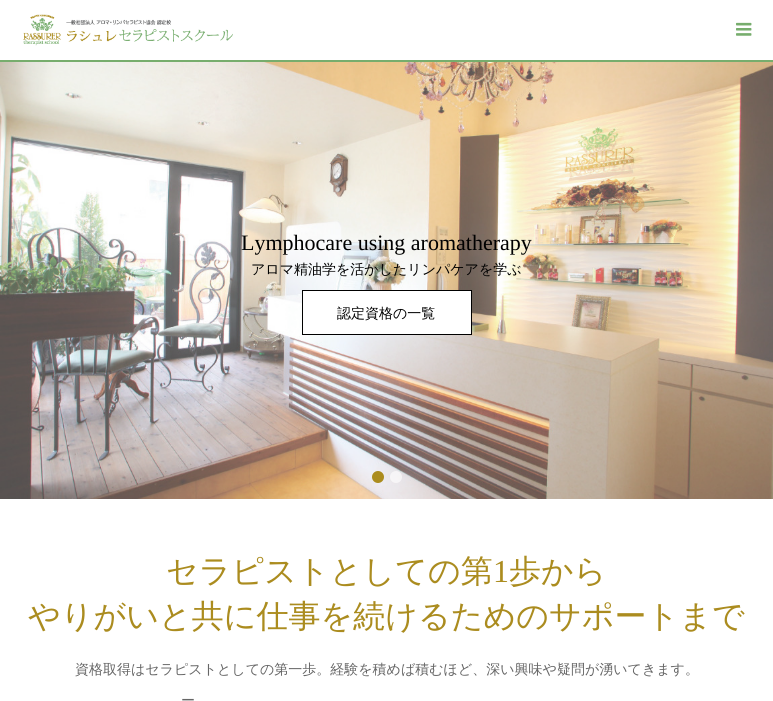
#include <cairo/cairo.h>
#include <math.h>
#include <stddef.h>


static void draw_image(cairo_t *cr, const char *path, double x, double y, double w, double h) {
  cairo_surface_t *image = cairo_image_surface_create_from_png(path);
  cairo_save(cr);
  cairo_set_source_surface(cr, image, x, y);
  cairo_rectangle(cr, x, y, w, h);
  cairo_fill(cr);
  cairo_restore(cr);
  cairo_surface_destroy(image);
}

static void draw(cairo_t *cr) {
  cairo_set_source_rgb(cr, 1, 1, 1);
  cairo_paint(cr);
  cairo_set_source_rgb(cr, 119 / 255.0, 173 / 255.0, 109 / 255.0);
  cairo_rectangle(cr, 0, 60, 773, 2);
  cairo_fill(cr);
  draw_image(cr, "images/1.png", 23, 14, 210, 32);
  draw_image(cr, "images/2.png", 736, 22, 16, 14);
  draw_image(cr, "images/3.png", 0, 62, 773, 437);
  cairo_set_source_rgb(cr, 1, 1, 1);
  cairo_rectangle(cr, 302.5, 290.5, 169, 44);
  cairo_fill_preserve(cr);
  cairo_set_source_rgb(cr, 0, 0, 0);
  cairo_set_line_width(cr, 1);
  cairo_stroke(cr);
  cairo_set_source_rgb(cr, 171 / 255.0, 140 / 255.0, 30 / 255.0);
  cairo_arc(cr, 378, 477, 6, 0, 2 * M_PI);
  cairo_fill(cr);
  cairo_set_source_rgba(cr, 1, 1, 1, 0.6);
  cairo_arc(cr, 396, 477, 6, 0, 2 * M_PI);
  cairo_fill(cr);
  cairo_select_font_face(cr, "Liberation Serif", CAIRO_FONT_SLANT_NORMAL, CAIRO_FONT_WEIGHT_NORMAL);
  cairo_set_font_size(cr, 22);
  cairo_set_source_rgb(cr, 0, 0, 0);
  cairo_move_to(cr, 241, 250);
  cairo_show_text(cr, "Lymphocare using aromatherapy");
  cairo_select_font_face(cr, "WenQuanYi Zen Hei Medium", CAIRO_FONT_SLANT_NORMAL, CAIRO_FONT_WEIGHT_NORMAL);
  cairo_set_font_size(cr, 14);
  cairo_move_to(cr, 251, 274);
  cairo_show_text(cr, "アロマ精油学を活かしたリンパケアを学ぶ");
  cairo_move_to(cr, 337, 318);
  cairo_show_text(cr, "認定資格の一覧");
  cairo_set_font_size(cr, 32);
  cairo_set_source_rgb(cr, 171 / 255.0, 140 / 255.0, 31 / 255.0);
  cairo_move_to(cr, 166, 582);
  cairo_show_text(cr, "セラピストとしての第");
  cairo_select_font_face(cr, "Liberation Serif", CAIRO_FONT_SLANT_NORMAL, CAIRO_FONT_WEIGHT_NORMAL);
  cairo_move_to(cr, 493, 582);
  cairo_show_text(cr, "1");
  cairo_select_font_face(cr, "WenQuanYi Zen Hei Medium", CAIRO_FONT_SLANT_NORMAL, CAIRO_FONT_WEIGHT_NORMAL);
  cairo_move_to(cr, 509, 582);
  cairo_show_text(cr, "歩から");
  cairo_move_to(cr, 28, 627);
  cairo_show_text(cr, "やりがいと共に仕事を続けるためのサポートまで");
  cairo_set_font_size(cr, 14);
  cairo_set_source_rgb(cr, 102 / 255.0, 102 / 255.0, 102 / 255.0);
  cairo_move_to(cr, 75, 674);
  cairo_show_text(cr, "資格取得はセラピストとしての第一歩。経験を積めば積むほど、深い興味や疑問が湧いてきます。");
  cairo_move_to(cr, 181, 705);
  cairo_show_text(cr, "ー");
}

int main(void) {
  cairo_surface_t *surface = cairo_image_surface_create(CAIRO_FORMAT_RGB24, 773, 701);
  cairo_t *cr = cairo_create(surface);
  cairo_font_options_t *options = cairo_font_options_create();
  cairo_font_options_set_hint_metrics(options, CAIRO_HINT_METRICS_OFF);
  cairo_font_options_set_hint_style(options, CAIRO_HINT_STYLE_NONE);
  cairo_set_font_options(cr, options);
  cairo_set_miter_limit(cr, 4);
  draw(cr);
  cairo_surface_write_to_png(surface, "out.png");
  cairo_font_options_destroy(options);
  cairo_destroy(cr);
  cairo_surface_destroy(surface);
  return 0;
}
